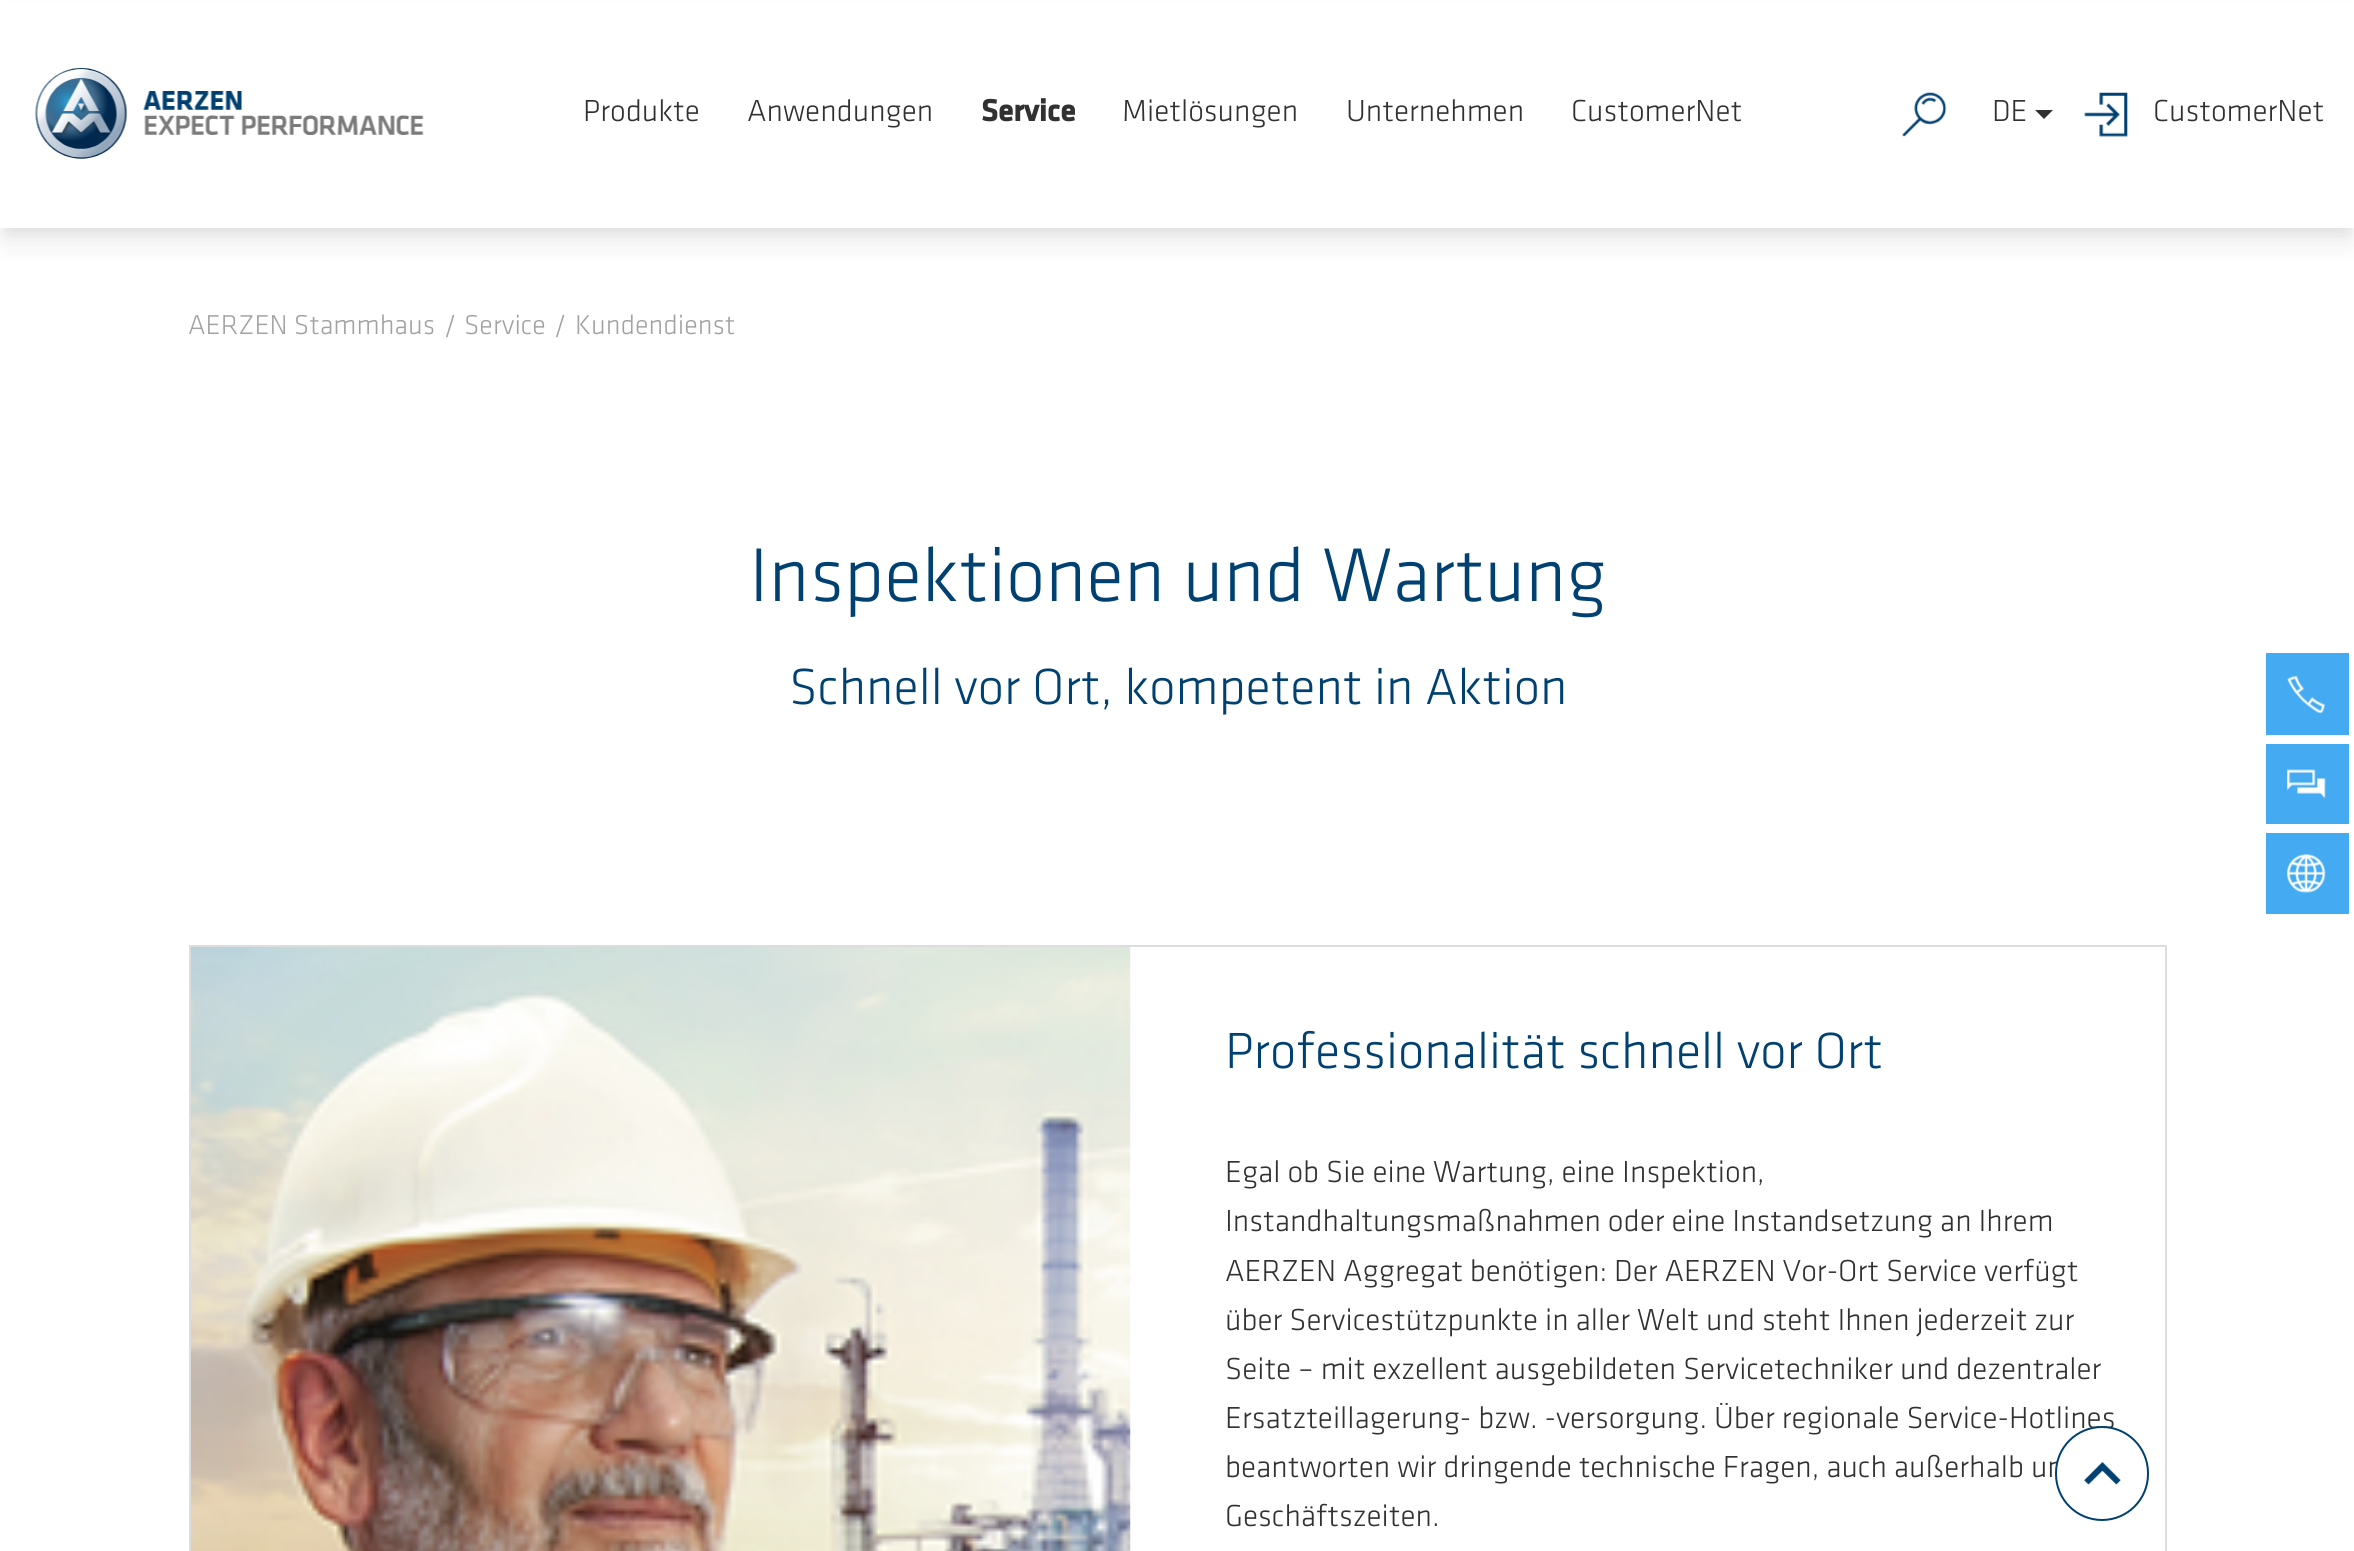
#include <cairo/cairo.h>
#include <math.h>
#include <stddef.h>


static void rounded_rect(cairo_t *cr, double x, double y, double w, double h, double r) {
  cairo_new_sub_path(cr);
  cairo_arc(cr, x + w - r, y + h - r, r, 0, M_PI / 2);
  cairo_arc(cr, x + r, y + h - r, r, M_PI / 2, M_PI);
  cairo_arc(cr, x + r, y + r, r, M_PI, 1.5 * M_PI);
  cairo_arc(cr, x + w - r, y + r, r, 1.5 * M_PI, 2 * M_PI);
  cairo_close_path(cr);
}

static void draw_shadow(cairo_t *cr, double x, double y, double w, double h, double r, double blur, double alpha) {
  cairo_push_group_with_content(cr, CAIRO_CONTENT_ALPHA);
  cairo_set_operator(cr, CAIRO_OPERATOR_SOURCE);
  for (int i = 15; i >= -15 && fmin(w, h) + blur * i / 3 > 0; i -= 2) {
    double e = blur * i / 6;
    cairo_set_source_rgba(cr, 0, 0, 0, alpha * erfc((i - 1) / 8.5) / 2);
    rounded_rect(cr, x - e, y - e, w + 2 * e, h + 2 * e, fmax(0, fmin(r + e + blur * .6, fmin(w, h) / 2 + e)));
    cairo_fill(cr);
  }
  cairo_pattern_t *soft = cairo_pop_group(cr);
  cairo_mask(cr, soft);
  cairo_pattern_destroy(soft);
}

static void draw_image(cairo_t *cr, const char *path, double x, double y, double w, double h) {
  cairo_surface_t *image = cairo_image_surface_create_from_png(path);
  cairo_save(cr);
  cairo_set_source_surface(cr, image, x, y);
  cairo_rectangle(cr, x, y, w, h);
  cairo_fill(cr);
  cairo_restore(cr);
  cairo_surface_destroy(image);
}

static void draw(cairo_t *cr) {
  cairo_set_source_rgb(cr, 1, 1, 1);
  cairo_paint(cr);
  cairo_set_source_rgb(cr, 0, 0, 0);
  draw_shadow(cr, 4, 11, 2348, 220, 0, 5, 0.05);
  draw_shadow(cr, 5, 23, 2345, 217, 0, 13, 0.1);
  cairo_set_source_rgb(cr, 1, 1, 1);
  cairo_rectangle(cr, 0, 3, 2354, 225);
  cairo_fill(cr);
  draw_image(cr, "images/1.png", 35, 68, 389, 91);
  draw_image(cr, "images/2.png", 1902, 92, 45, 45);
  cairo_set_source_rgb(cr, 49 / 255.0, 49 / 255.0, 49 / 255.0);
  cairo_new_path(cr);
  cairo_move_to(cr, 2035, 110);
  cairo_line_to(cr, 2053, 110);
  cairo_line_to(cr, 2044, 119);
  cairo_close_path(cr);
  cairo_fill(cr);
  draw_image(cr, "images/3.png", 2084, 92, 44, 45);
  cairo_rectangle(cr, 190, 946, 1976, 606);
  cairo_set_source_rgb(cr, 221 / 255.0, 221 / 255.0, 221 / 255.0);
  cairo_stroke(cr);
  draw_image(cr, "images/4.png", 191, 947, 940, 604);
  cairo_set_source_rgb(cr, 68 / 255.0, 170 / 255.0, 242 / 255.0);
  cairo_rectangle(cr, 2266, 653, 83, 82);
  cairo_fill(cr);
  draw_image(cr, "images/5.png", 2287, 675, 39, 39);
  cairo_rectangle(cr, 2266, 744, 83, 80);
  cairo_fill(cr);
  draw_image(cr, "images/6.png", 2287, 769, 39, 30);
  cairo_rectangle(cr, 2266, 833, 83, 81);
  cairo_fill(cr);
  draw_image(cr, "images/7.png", 2287, 854, 39, 39);
  cairo_select_font_face(cr, "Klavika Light", CAIRO_FONT_SLANT_NORMAL, CAIRO_FONT_WEIGHT_NORMAL);
  cairo_set_font_size(cr, 31.5);
  cairo_set_source_rgb(cr, 49 / 255.0, 49 / 255.0, 49 / 255.0);
  cairo_move_to(cr, 583, 121);
  cairo_show_text(cr, "Produkte");
  cairo_move_to(cr, 747, 121);
  cairo_show_text(cr, "Anwendungen");
  cairo_select_font_face(cr, "Klavika", CAIRO_FONT_SLANT_NORMAL, CAIRO_FONT_WEIGHT_BOLD);
  cairo_move_to(cr, 981, 121);
  cairo_show_text(cr, "Service");
  cairo_select_font_face(cr, "Klavika Light", CAIRO_FONT_SLANT_NORMAL, CAIRO_FONT_WEIGHT_NORMAL);
  cairo_move_to(cr, 1122, 121);
  cairo_show_text(cr, "Mietlösungen");
  cairo_move_to(cr, 1346, 121);
  cairo_show_text(cr, "Unternehmen");
  cairo_move_to(cr, 1571, 121);
  cairo_show_text(cr, "CustomerNet");
  cairo_move_to(cr, 1992, 121);
  cairo_show_text(cr, "DE");
  cairo_move_to(cr, 2153, 121);
  cairo_show_text(cr, "CustomerNet");
  cairo_set_font_size(cr, 28.25);
  cairo_set_source_rgb(cr, 162 / 255.0, 162 / 255.0, 162 / 255.0);
  cairo_move_to(cr, 188, 334);
  cairo_show_text(cr, "AERZEN Stammhaus");
  cairo_move_to(cr, 444, 334);
  cairo_show_text(cr, "/");
  cairo_move_to(cr, 464, 334);
  cairo_show_text(cr, "Service");
  cairo_move_to(cr, 554, 334);
  cairo_show_text(cr, "/");
  cairo_move_to(cr, 575, 334);
  cairo_show_text(cr, "Kundendienst");
  cairo_set_font_size(cr, 78.75);
  cairo_set_source_rgb(cr, 0, 65 / 255.0, 113 / 255.0);
  cairo_move_to(cr, 749, 601);
  cairo_show_text(cr, "Inspektionen und Wartung");
  cairo_set_font_size(cr, 52.6);
  cairo_move_to(cr, 789, 704);
  cairo_show_text(cr, "Schnell vor Ort, kompetent in Aktion");
  cairo_move_to(cr, 1225, 1068);
  cairo_show_text(cr, "Professionalität schnell vor Ort");
  cairo_set_font_size(cr, 31.5);
  cairo_set_source_rgb(cr, 49 / 255.0, 49 / 255.0, 49 / 255.0);
  cairo_move_to(cr, 1225, 1182);
  cairo_show_text(cr, "Egal ob Sie eine Wartung, eine Inspektion,");
  cairo_move_to(cr, 1225, 1231);
  cairo_show_text(cr, "Instandhaltungsmaßnahmen oder eine Instandsetzung an Ihrem");
  cairo_move_to(cr, 1225, 1281);
  cairo_show_text(cr, "AERZEN Aggregat benötigen: Der AERZEN Vor-Ort Service verfügt");
  cairo_move_to(cr, 1225, 1330);
  cairo_show_text(cr, "über Servicestützpunkte in aller Welt und steht Ihnen jederzeit zur");
  cairo_move_to(cr, 1225, 1379);
  cairo_show_text(cr, "Seite – mit exzellent ausgebildeten Servicetechniker und dezentraler");
  cairo_move_to(cr, 1225, 1428);
  cairo_show_text(cr, "Ersatzteillagerung- bzw. -versorgung. Über regionale Service-Hotlines");
  cairo_move_to(cr, 1225, 1477);
  cairo_show_text(cr, "beantworten wir dringende technische Fragen, auch außerhalb un");
  cairo_move_to(cr, 1225, 1526);
  cairo_show_text(cr, "Geschäftszeiten.");
  cairo_set_source_rgb(cr, 1, 1, 1);
  rounded_rect(cr, 2056, 1427, 92, 93, 46);
  cairo_fill_preserve(cr);
  cairo_set_source_rgb(cr, 0, 65 / 255.0, 113 / 255.0);
  cairo_stroke(cr);
  draw_image(cr, "images/8.png", 2084, 1462, 37, 23);
}

int main(void) {
  cairo_surface_t *surface = cairo_image_surface_create(CAIRO_FORMAT_RGB24, 2354, 1551);
  cairo_t *cr = cairo_create(surface);
  cairo_font_options_t *options = cairo_font_options_create();
  cairo_font_options_set_hint_metrics(options, CAIRO_HINT_METRICS_OFF);
  cairo_font_options_set_hint_style(options, CAIRO_HINT_STYLE_NONE);
  cairo_set_font_options(cr, options);
  cairo_set_miter_limit(cr, 4);
  draw(cr);
  cairo_surface_write_to_png(surface, "out.png");
  cairo_font_options_destroy(options);
  cairo_destroy(cr);
  cairo_surface_destroy(surface);
  return 0;
}
